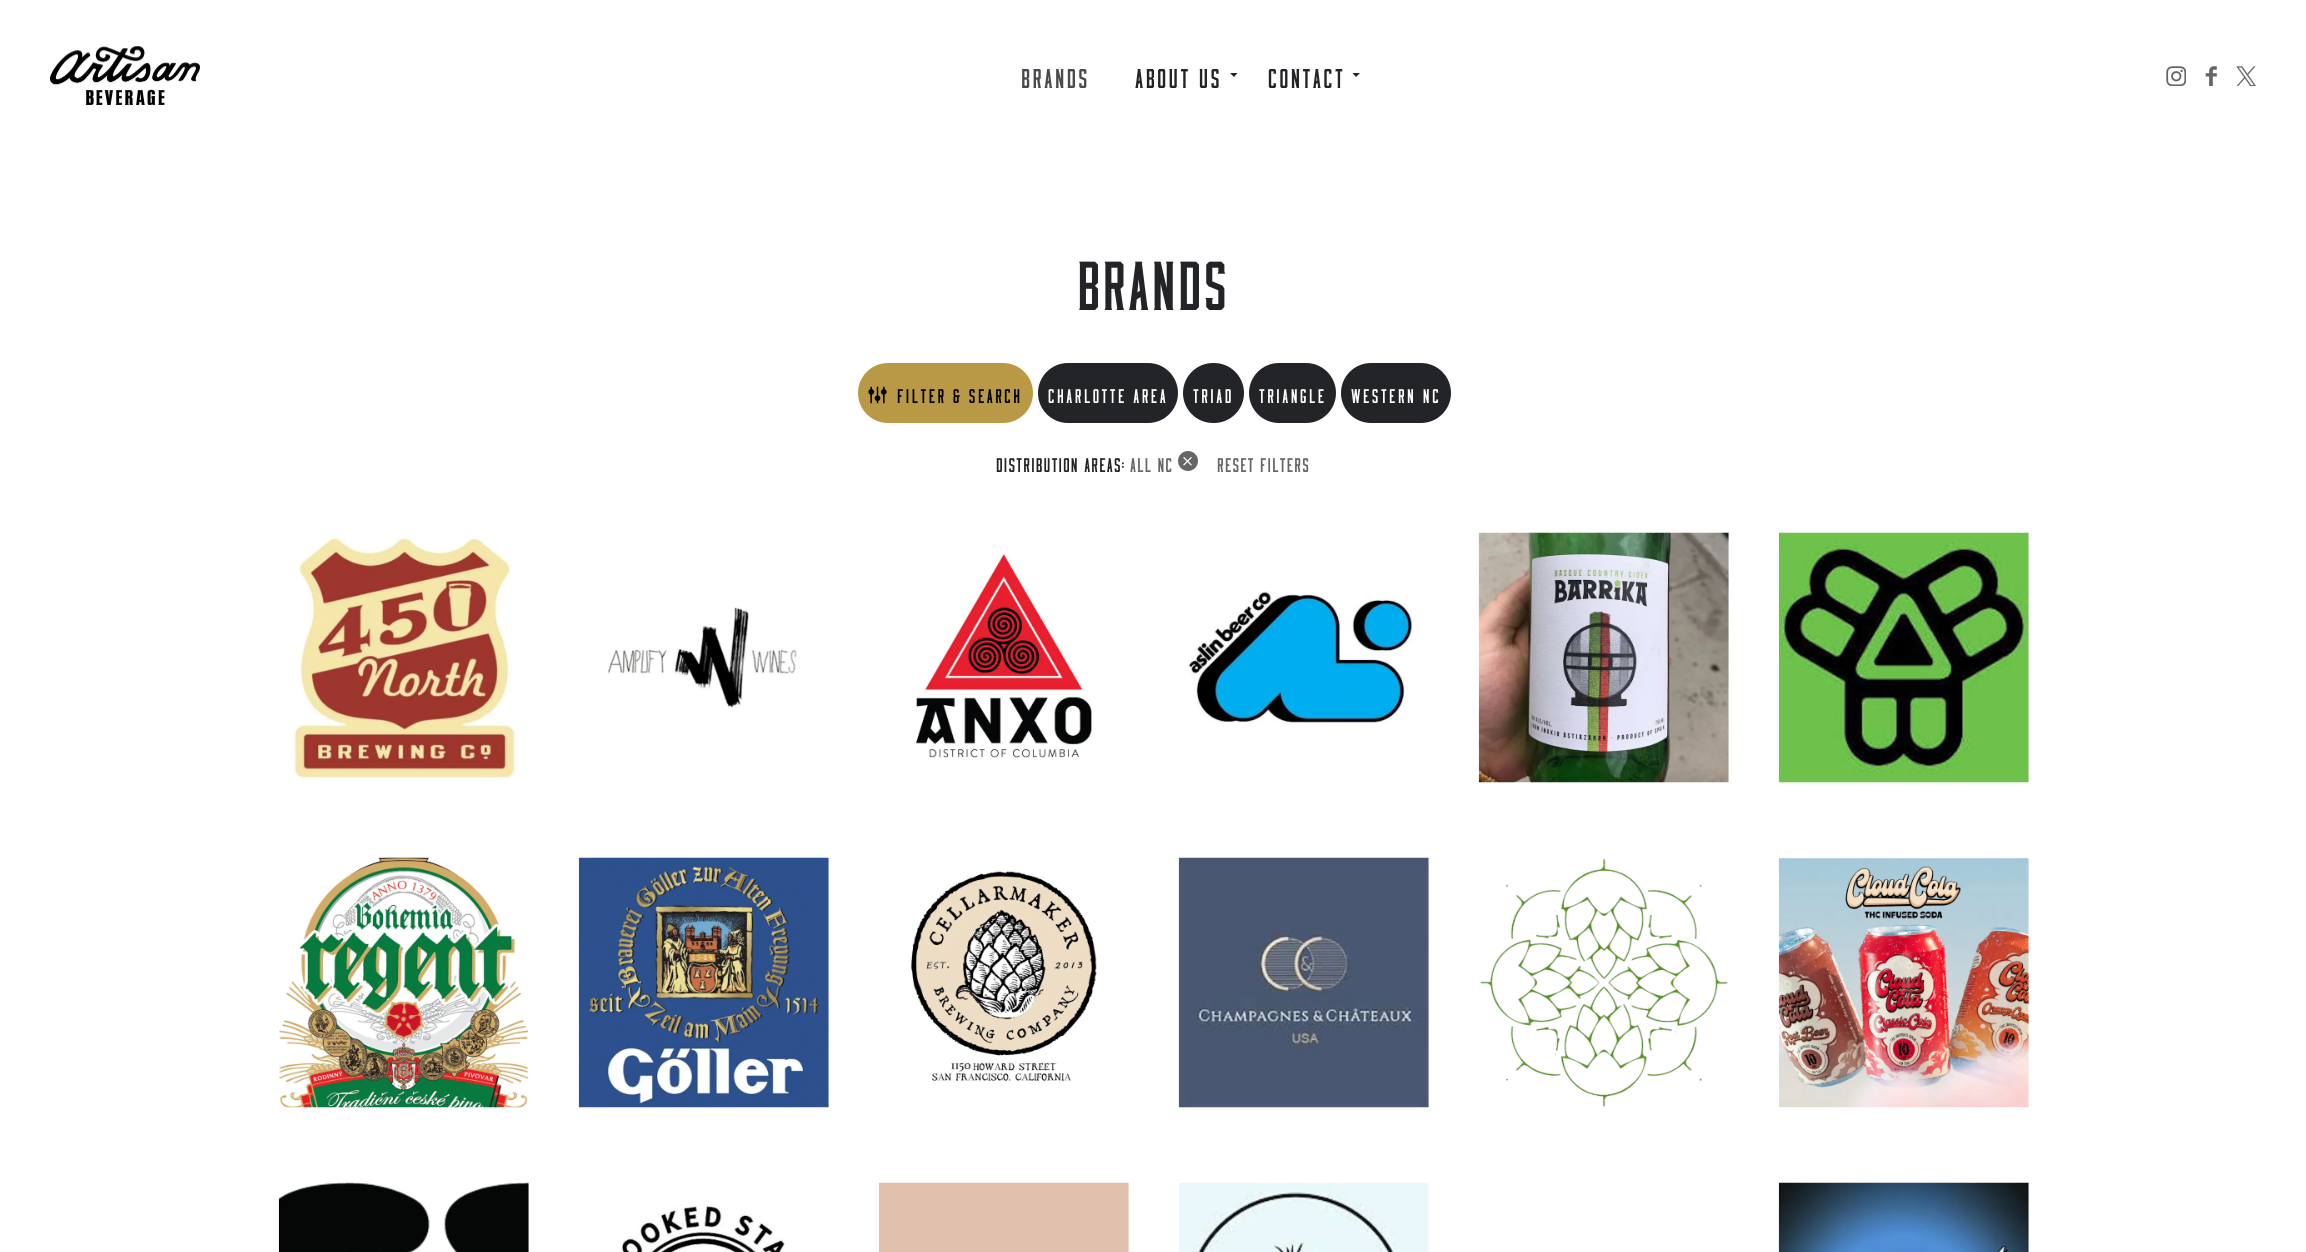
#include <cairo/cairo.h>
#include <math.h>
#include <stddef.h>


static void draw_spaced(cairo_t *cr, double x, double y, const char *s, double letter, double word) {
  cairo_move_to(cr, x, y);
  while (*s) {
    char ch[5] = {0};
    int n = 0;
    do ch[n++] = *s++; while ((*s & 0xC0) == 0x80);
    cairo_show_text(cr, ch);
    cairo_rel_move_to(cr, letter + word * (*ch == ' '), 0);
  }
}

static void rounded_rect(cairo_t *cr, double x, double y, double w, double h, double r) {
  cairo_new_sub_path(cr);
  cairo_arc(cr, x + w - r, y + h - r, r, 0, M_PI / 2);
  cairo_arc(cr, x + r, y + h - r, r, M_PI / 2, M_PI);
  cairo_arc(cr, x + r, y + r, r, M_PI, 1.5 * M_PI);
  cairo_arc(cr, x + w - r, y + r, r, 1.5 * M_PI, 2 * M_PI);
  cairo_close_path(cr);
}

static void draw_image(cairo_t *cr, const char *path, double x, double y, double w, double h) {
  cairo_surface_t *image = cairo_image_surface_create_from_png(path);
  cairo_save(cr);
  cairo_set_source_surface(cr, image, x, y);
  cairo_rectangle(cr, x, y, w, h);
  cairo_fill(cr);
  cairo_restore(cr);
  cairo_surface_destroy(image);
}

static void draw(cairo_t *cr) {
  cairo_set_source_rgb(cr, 1, 1, 1);
  cairo_paint(cr);
  draw_image(cr, "images/1.png", 50, 46, 150, 59);
  cairo_set_source_rgb(cr, 35 / 255.0, 36 / 255.0, 40 / 255.0);
  cairo_new_path(cr);
  cairo_move_to(cr, 1230, 73);
  cairo_line_to(cr, 1237.5, 73);
  cairo_line_to(cr, 1234, 77);
  cairo_close_path(cr);
  cairo_fill(cr);
  cairo_new_path(cr);
  cairo_move_to(cr, 1352.5, 73);
  cairo_line_to(cr, 1360, 73);
  cairo_line_to(cr, 1356, 77);
  cairo_close_path(cr);
  cairo_fill(cr);
  draw_image(cr, "images/2.png", 2166, 66, 20, 20);
  draw_image(cr, "images/3.png", 2205, 66, 12, 20);
  draw_image(cr, "images/4.png", 2236, 66, 20, 20);
  cairo_set_source_rgb(cr, 185 / 255.0, 153 / 255.0, 70 / 255.0);
  rounded_rect(cr, 858, 363, 175, 60, 30);
  cairo_fill(cr);
  draw_image(cr, "images/5.png", 868, 386, 19, 18);
  cairo_set_source_rgb(cr, 35 / 255.0, 36 / 255.0, 40 / 255.0);
  rounded_rect(cr, 1038, 363, 140, 60, 30);
  cairo_fill(cr);
  rounded_rect(cr, 1183, 363, 61, 60, 30);
  cairo_fill(cr);
  rounded_rect(cr, 1249, 363, 87, 60, 30);
  cairo_fill(cr);
  rounded_rect(cr, 1341, 363, 110, 60, 30);
  cairo_fill(cr);
  cairo_set_source_rgb(cr, 102 / 255.0, 102 / 255.0, 102 / 255.0);
  cairo_arc(cr, 1188, 461, 10, 0, 2 * M_PI);
  cairo_fill(cr);
  draw_image(cr, "images/6.png", 1183, 457, 9, 9);
  draw_image(cr, "images/7.png", 292, 535, 224, 245);
  draw_image(cr, "images/8.png", 608, 607, 189, 101);
  draw_image(cr, "images/9.png", 915, 553, 177, 205);
  draw_image(cr, "images/10.png", 1187, 591, 227, 132);
  draw_image(cr, "images/11.png", 1478, 532, 251, 251);
  draw_image(cr, "images/12.png", 1778, 532, 251, 251);
  draw_image(cr, "images/13.png", 279, 857, 250, 251);
  draw_image(cr, "images/14.png", 578, 857, 251, 251);
  draw_image(cr, "images/15.png", 911, 871, 186, 210);
  draw_image(cr, "images/16.png", 1178, 857, 251, 251);
  draw_image(cr, "images/17.png", 1479, 858, 249, 249);
  draw_image(cr, "images/18.png", 1778, 857, 251, 251);
  draw_image(cr, "images/19.png", 278, 1182, 251, 70);
  draw_image(cr, "images/20.png", 621, 1204, 164, 48);
  draw_image(cr, "images/21.png", 878, 1182, 251, 70);
  draw_image(cr, "images/22.png", 1179, 1182, 250, 70);
  draw_image(cr, "images/23.png", 1778, 1182, 251, 70);
  cairo_select_font_face(cr, "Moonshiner", CAIRO_FONT_SLANT_NORMAL, CAIRO_FONT_WEIGHT_NORMAL);
  cairo_set_font_size(cr, 27.5);
  cairo_set_source_rgb(cr, 75 / 255.0, 75 / 255.0, 79 / 255.0);
  draw_spaced(cr, 1021, 88, "BRANDS", 2.5, 0);
  cairo_set_source_rgb(cr, 35 / 255.0, 36 / 255.0, 40 / 255.0);
  draw_spaced(cr, 1135, 88, "ABOUT US", 2.5, 0);
  draw_spaced(cr, 1268, 88, "CONTACT", 2.5, 0);
  cairo_set_font_size(cr, 70);
  draw_spaced(cr, 1077, 310, "BRANDS", 2.5, 0);
  cairo_set_font_size(cr, 20);
  cairo_set_source_rgb(cr, 0, 0, 0);
  draw_spaced(cr, 897, 403, "FILTER & SEARCH", 2.5, 0);
  cairo_set_source_rgb(cr, 1, 1, 1);
  draw_spaced(cr, 1048, 403, "CHARLOTTE AREA", 2.5, 0);
  draw_spaced(cr, 1193, 403, "TRIAD", 2.5, 0);
  draw_spaced(cr, 1259, 403, "TRIANGLE", 2.5, 0);
  draw_spaced(cr, 1351, 403, "WESTERN NC", 2.5, 0);
  cairo_set_source_rgb(cr, 35 / 255.0, 36 / 255.0, 40 / 255.0);
  draw_spaced(cr, 996, 472, "DISTRIBUTION AREAS:", 1.25, 0);
  cairo_set_source_rgb(cr, 102 / 255.0, 102 / 255.0, 102 / 255.0);
  draw_spaced(cr, 1130, 472, "ALL NC", 1.25, 0);
  draw_spaced(cr, 1217, 472, "RESET FILTERS", 1.25, 0);
}

int main(void) {
  cairo_surface_t *surface = cairo_image_surface_create(CAIRO_FORMAT_RGB24, 2306, 1252);
  cairo_t *cr = cairo_create(surface);
  cairo_font_options_t *options = cairo_font_options_create();
  cairo_font_options_set_hint_metrics(options, CAIRO_HINT_METRICS_OFF);
  cairo_font_options_set_hint_style(options, CAIRO_HINT_STYLE_NONE);
  cairo_set_font_options(cr, options);
  cairo_set_miter_limit(cr, 4);
  draw(cr);
  cairo_surface_write_to_png(surface, "out.png");
  cairo_font_options_destroy(options);
  cairo_destroy(cr);
  cairo_surface_destroy(surface);
  return 0;
}
